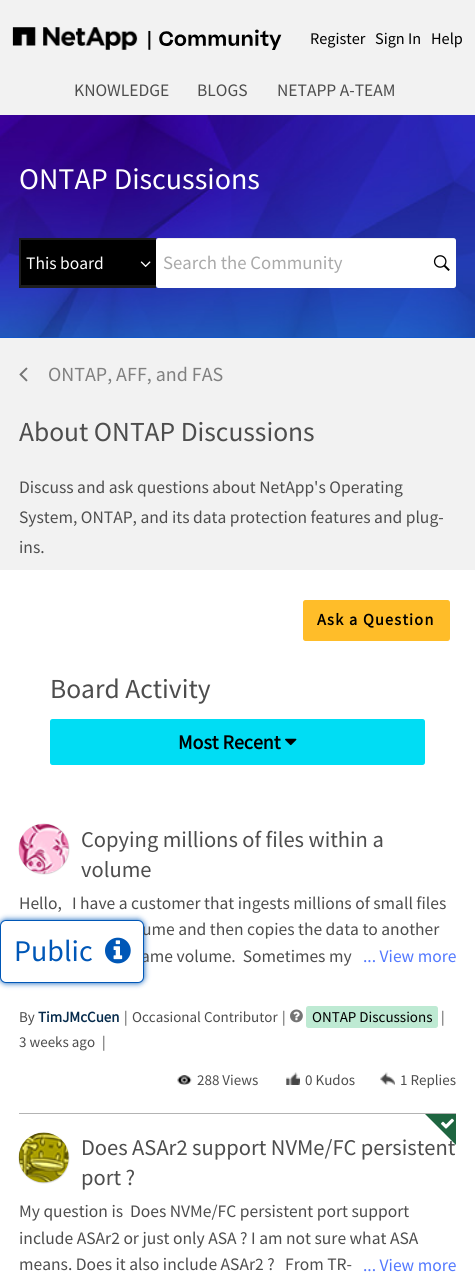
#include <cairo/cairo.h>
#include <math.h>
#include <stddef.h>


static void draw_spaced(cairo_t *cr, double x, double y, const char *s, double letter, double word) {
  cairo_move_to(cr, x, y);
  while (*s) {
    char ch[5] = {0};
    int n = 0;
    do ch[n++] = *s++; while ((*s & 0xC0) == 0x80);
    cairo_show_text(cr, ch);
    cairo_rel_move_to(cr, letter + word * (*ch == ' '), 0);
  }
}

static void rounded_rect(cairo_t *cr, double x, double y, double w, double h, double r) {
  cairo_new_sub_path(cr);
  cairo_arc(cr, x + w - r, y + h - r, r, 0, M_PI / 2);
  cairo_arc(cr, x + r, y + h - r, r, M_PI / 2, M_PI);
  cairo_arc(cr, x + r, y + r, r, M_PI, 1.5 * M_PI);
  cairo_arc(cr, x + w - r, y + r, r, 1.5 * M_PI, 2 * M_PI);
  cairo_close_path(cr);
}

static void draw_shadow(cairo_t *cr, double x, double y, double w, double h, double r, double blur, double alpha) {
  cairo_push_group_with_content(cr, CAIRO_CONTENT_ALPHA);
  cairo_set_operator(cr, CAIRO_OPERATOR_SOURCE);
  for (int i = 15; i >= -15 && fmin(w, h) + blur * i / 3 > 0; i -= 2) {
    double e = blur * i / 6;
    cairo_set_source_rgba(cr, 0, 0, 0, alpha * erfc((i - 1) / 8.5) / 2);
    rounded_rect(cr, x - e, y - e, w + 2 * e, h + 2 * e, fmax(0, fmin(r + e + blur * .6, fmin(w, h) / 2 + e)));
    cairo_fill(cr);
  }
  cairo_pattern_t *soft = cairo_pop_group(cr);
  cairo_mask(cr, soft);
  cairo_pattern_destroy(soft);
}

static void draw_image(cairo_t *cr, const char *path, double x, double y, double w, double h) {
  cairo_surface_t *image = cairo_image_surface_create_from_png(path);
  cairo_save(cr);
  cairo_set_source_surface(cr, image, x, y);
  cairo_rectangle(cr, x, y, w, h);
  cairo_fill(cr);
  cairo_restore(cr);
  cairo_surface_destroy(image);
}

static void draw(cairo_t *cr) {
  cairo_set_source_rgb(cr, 1, 1, 1);
  cairo_paint(cr);
  cairo_set_source_rgb(cr, 242 / 255.0, 242 / 255.0, 242 / 255.0);
  cairo_rectangle(cr, 0, 0, 475, 115);
  cairo_fill(cr);
  draw_image(cr, "images/1.png", 12, 27, 270, 23);
  cairo_rectangle(cr, 0, 338, 475, 232);
  cairo_fill(cr);
  cairo_set_source_rgb(cr, 0, 84 / 255.0, 215 / 255.0);
  cairo_rectangle(cr, 0, 337, 475, 1);
  cairo_fill(cr);
  draw_image(cr, "images/2.png", 0, 115, 475, 223);
  cairo_set_source_rgb(cr, 0, 0, 0);
  cairo_rectangle(cr, 19, 238, 137, 50);
  cairo_fill(cr);
  cairo_set_source_rgb(cr, 29 / 255.0, 29 / 255.0, 29 / 255.0);
  cairo_new_path(cr);
  cairo_move_to(cr, 19, 238);
  cairo_line_to(cr, 156, 238);
  cairo_line_to(cr, 156, 240);
  cairo_line_to(cr, 21, 240);
  cairo_close_path(cr);
  cairo_fill(cr);
  cairo_new_path(cr);
  cairo_move_to(cr, 156, 288);
  cairo_line_to(cr, 19, 288);
  cairo_line_to(cr, 21, 285);
  cairo_line_to(cr, 156, 285);
  cairo_close_path(cr);
  cairo_fill(cr);
  cairo_set_source_rgba(cr, 196 / 255.0, 196 / 255.0, 196 / 255.0, 0.15);
  cairo_new_path(cr);
  cairo_move_to(cr, 19, 288);
  cairo_line_to(cr, 19, 238);
  cairo_line_to(cr, 21, 240);
  cairo_line_to(cr, 21, 285);
  cairo_close_path(cr);
  cairo_fill(cr);
  draw_image(cr, "images/3.png", 140, 261, 11, 6);
  cairo_set_source_rgb(cr, 1, 1, 1);
  rounded_rect(cr, 156, 238, 300, 50, 2.5);
  cairo_fill(cr);
  cairo_set_source_rgba(cr, 0, 0, 0, 0.07);
  cairo_new_path(cr);
  cairo_move_to(cr, 159, 239);
  cairo_line_to(cr, 454, 239);
  cairo_curve_to(cr, 455, 239, 456, 240, 456, 241);
  cairo_curve_to(cr, 456, 239, 455, 238, 454, 238);
  cairo_line_to(cr, 158, 238);
  cairo_line_to(cr, 156, 240);
  cairo_line_to(cr, 156, 241);
  cairo_curve_to(cr, 156, 240, 157, 239, 159, 239);
  cairo_close_path(cr);
  cairo_fill(cr);
  draw_image(cr, "images/4.png", 433, 255, 17, 16);
  draw_image(cr, "images/5.png", 19, 367, 9, 15);
  cairo_set_source_rgb(cr, 1, 189 / 255.0, 41 / 255.0);
  rounded_rect(cr, 304.5, 601.5, 144, 38, 1);
  cairo_fill_preserve(cr);
  cairo_set_line_width(cr, 3);
  cairo_stroke(cr);
  cairo_set_source_rgb(cr, 0, 221 / 255.0, 244 / 255.0);
  rounded_rect(cr, 51.5, 720.5, 372, 43, 1);
  cairo_fill_preserve(cr);
  cairo_stroke(cr);
  draw_image(cr, "images/6.png", 285, 738, 12, 8);
  cairo_set_source_rgb(cr, 179 / 255.0, 179 / 255.0, 179 / 255.0);
  cairo_rectangle(cr, 19, 1113, 437, 1);
  cairo_fill(cr);
  cairo_set_source_rgb(cr, 196 / 255.0, 196 / 255.0, 196 / 255.0);
  draw_shadow(cr, 19, 824, 50, 50, 25, 0.5, 1);
  draw_image(cr, "images/7.png", 18, 823, 51, 51);
  draw_image(cr, "images/8.png", 290, 1009, 13, 14);
  cairo_set_source_rgb(cr, 190 / 255.0, 234 / 255.0, 211 / 255.0);
  rounded_rect(cr, 306, 1006, 132, 22, 2.5);
  cairo_fill(cr);
  draw_image(cr, "images/9.png", 177, 1075, 15, 10);
  draw_image(cr, "images/10.png", 286, 1072, 14, 13);
  draw_image(cr, "images/11.png", 380, 1072, 15, 13);
  cairo_set_source_rgb(cr, 196 / 255.0, 196 / 255.0, 196 / 255.0);
  draw_shadow(cr, 19, 1133, 50, 50, 25, 0.5, 1);
  draw_image(cr, "images/13.png", 18, 1132, 51, 51);
  cairo_set_source_rgb(cr, 0, 87 / 255.0, 183 / 255.0);
  draw_shadow(cr, 0, 920, 144, 63, 6, 3, 1);
  cairo_select_font_face(cr, "Source Sans Pro", CAIRO_FONT_SLANT_NORMAL, CAIRO_FONT_WEIGHT_NORMAL);
  cairo_set_font_size(cr, 16.25);
  cairo_set_source_rgb(cr, 0, 0, 0);
  cairo_move_to(cr, 310, 44);
  cairo_show_text(cr, "Register");
  cairo_move_to(cr, 375, 44);
  cairo_show_text(cr, "Sign In");
  cairo_move_to(cr, 431, 44);
  cairo_show_text(cr, "Help");
  cairo_set_font_size(cr, 17.5);
  cairo_set_source_rgb(cr, 77 / 255.0, 77 / 255.0, 77 / 255.0);
  cairo_move_to(cr, 74, 96);
  cairo_show_text(cr, "KNOWLEDGE");
  cairo_move_to(cr, 197, 96);
  cairo_show_text(cr, "BLOGS");
  cairo_move_to(cr, 277, 96);
  cairo_show_text(cr, "NETAPP A-TEAM");
  cairo_set_font_size(cr, 30);
  cairo_set_source_rgb(cr, 1, 1, 1);
  cairo_move_to(cr, 19, 189);
  cairo_show_text(cr, "ONTAP Discussions");
  cairo_set_font_size(cr, 17.5);
  cairo_move_to(cr, 26, 269);
  cairo_show_text(cr, "This board");
  cairo_set_font_size(cr, 18.75);
  cairo_set_source_rgb(cr, 169 / 255.0, 169 / 255.0, 169 / 255.0);
  cairo_move_to(cr, 163, 269);
  cairo_show_text(cr, "Search the Community");
  cairo_set_font_size(cr, 20);
  cairo_set_source_rgb(cr, 128 / 255.0, 128 / 255.0, 128 / 255.0);
  cairo_move_to(cr, 48, 381);
  cairo_show_text(cr, "ONTAP, AFF, and FAS");
  cairo_set_font_size(cr, 27.5);
  cairo_set_source_rgb(cr, 77 / 255.0, 77 / 255.0, 77 / 255.0);
  cairo_move_to(cr, 19, 441);
  cairo_show_text(cr, "About ONTAP Discussions");
  cairo_set_font_size(cr, 17.5);
  cairo_move_to(cr, 19, 493);
  cairo_show_text(cr, "Discuss and ask questions about NetApp's Operating");
  cairo_move_to(cr, 19, 523);
  cairo_show_text(cr, "System, ONTAP, and its data protection features and plug-");
  cairo_move_to(cr, 19, 553);
  cairo_show_text(cr, "ins.");
  cairo_select_font_face(cr, "Source Sans Pro", CAIRO_FONT_SLANT_NORMAL, CAIRO_FONT_WEIGHT_BOLD);
  cairo_set_font_size(cr, 16.25);
  cairo_set_source_rgb(cr, 0, 0, 0);
  draw_spaced(cr, 317, 625, "Ask a Question", 1.25, 0);
  cairo_select_font_face(cr, "Source Sans Pro", CAIRO_FONT_SLANT_NORMAL, CAIRO_FONT_WEIGHT_NORMAL);
  cairo_set_font_size(cr, 27.5);
  cairo_set_source_rgb(cr, 77 / 255.0, 77 / 255.0, 77 / 255.0);
  cairo_move_to(cr, 50, 698);
  cairo_show_text(cr, "Board Activity");
  cairo_select_font_face(cr, "Source Sans Pro", CAIRO_FONT_SLANT_NORMAL, CAIRO_FONT_WEIGHT_BOLD);
  cairo_set_font_size(cr, 20);
  cairo_set_source_rgb(cr, 0, 0, 0);
  cairo_move_to(cr, 178, 749);
  cairo_show_text(cr, "Most Recent");
  cairo_select_font_face(cr, "Source Sans Pro", CAIRO_FONT_SLANT_NORMAL, CAIRO_FONT_WEIGHT_NORMAL);
  cairo_set_font_size(cr, 22.5);
  cairo_set_source_rgb(cr, 77 / 255.0, 77 / 255.0, 77 / 255.0);
  cairo_move_to(cr, 81, 847);
  cairo_show_text(cr, "Copying millions of files within a");
  cairo_move_to(cr, 81, 877);
  cairo_show_text(cr, "volume");
  cairo_set_font_size(cr, 17.5);
  cairo_move_to(cr, 19, 909);
  cairo_show_text(cr, "Hello,");
  cairo_move_to(cr, 72, 909);
  cairo_show_text(cr, "I have a customer that ingests millions of small files");
  cairo_move_to(cr, 142, 935);
  cairo_show_text(cr, "ume and then copies the data to another");
  cairo_move_to(cr, 141, 962);
  cairo_show_text(cr, "ame volume.  Sometimes my");
  cairo_set_source_rgb(cr, 82 / 255.0, 120 / 255.0, 1);
  cairo_move_to(cr, 363, 962);
  cairo_show_text(cr, "... View more");
  cairo_set_font_size(cr, 15);
  cairo_set_source_rgb(cr, 77 / 255.0, 77 / 255.0, 77 / 255.0);
  cairo_move_to(cr, 19, 1022);
  cairo_show_text(cr, "By");
  cairo_select_font_face(cr, "Source Sans Pro", CAIRO_FONT_SLANT_NORMAL, CAIRO_FONT_WEIGHT_BOLD);
  cairo_set_source_rgb(cr, 6 / 255.0, 43 / 255.0, 76 / 255.0);
  cairo_move_to(cr, 38, 1022);
  cairo_show_text(cr, "TimJMcCuen");
  cairo_select_font_face(cr, "Source Sans Pro", CAIRO_FONT_SLANT_NORMAL, CAIRO_FONT_WEIGHT_NORMAL);
  cairo_set_source_rgb(cr, 77 / 255.0, 77 / 255.0, 77 / 255.0);
  cairo_move_to(cr, 124, 1022);
  cairo_show_text(cr, "|");
  cairo_move_to(cr, 132, 1022);
  cairo_show_text(cr, "Occasional Contributor");
  cairo_move_to(cr, 282, 1022);
  cairo_show_text(cr, "|");
  cairo_set_source_rgb(cr, 0, 0, 0);
  cairo_move_to(cr, 312, 1022);
  cairo_show_text(cr, "ONTAP Discussions");
  cairo_set_source_rgb(cr, 77 / 255.0, 77 / 255.0, 77 / 255.0);
  cairo_move_to(cr, 441, 1022);
  cairo_show_text(cr, "|");
  cairo_move_to(cr, 19, 1047);
  cairo_show_text(cr, "3 weeks ago");
  cairo_move_to(cr, 102, 1047);
  cairo_show_text(cr, "|");
  cairo_move_to(cr, 197, 1085);
  cairo_show_text(cr, "288 Views");
  cairo_move_to(cr, 305, 1085);
  cairo_show_text(cr, "0 Kudos");
  cairo_move_to(cr, 400, 1085);
  cairo_show_text(cr, "1 Replies");
  cairo_set_font_size(cr, 22.5);
  cairo_move_to(cr, 81, 1155);
  cairo_show_text(cr, "Does ASAr2 support NVMe/FC persistent");
  cairo_set_source_rgb(cr, 30 / 255.0, 101 / 255.0, 64 / 255.0);
  cairo_new_path(cr);
  cairo_move_to(cr, 425, 1114);
  cairo_line_to(cr, 456, 1114);
  cairo_line_to(cr, 456, 1145);
  cairo_close_path(cr);
  cairo_fill(cr);
  draw_image(cr, "images/12.png", 441, 1118, 13, 11);
  cairo_set_source_rgb(cr, 77 / 255.0, 77 / 255.0, 77 / 255.0);
  cairo_move_to(cr, 81, 1185);
  cairo_show_text(cr, "port ?");
  cairo_set_font_size(cr, 17.5);
  cairo_move_to(cr, 19, 1217);
  cairo_show_text(cr, "My question is");
  cairo_move_to(cr, 130, 1217);
  cairo_show_text(cr, "Does NVMe/FC persistent port support");
  cairo_move_to(cr, 19, 1244);
  cairo_show_text(cr, "include ASAr2 or just only ASA ? I am not sure what ASA");
  cairo_move_to(cr, 19, 1270);
  cairo_show_text(cr, "means. Does it also include ASAr2 ?");
  cairo_move_to(cr, 285, 1270);
  cairo_show_text(cr, "From TR-");
  cairo_set_source_rgb(cr, 82 / 255.0, 120 / 255.0, 1);
  cairo_move_to(cr, 363, 1271);
  cairo_show_text(cr, "... View more");
  cairo_set_source_rgb(cr, 1, 1, 1);
  rounded_rect(cr, 0.5, 920.5, 143, 62, 5.5);
  cairo_fill_preserve(cr);
  cairo_set_source_rgb(cr, 0, 87 / 255.0, 183 / 255.0);
  cairo_set_line_width(cr, 1);
  cairo_stroke(cr);
  cairo_set_font_size(cr, 30);
  cairo_move_to(cr, 14, 961);
  cairo_show_text(cr, "Public");
  draw_image(cr, "images/14.png", 105, 937, 26, 27);
}

int main(void) {
  cairo_surface_t *surface = cairo_image_surface_create(CAIRO_FORMAT_RGB24, 475, 1277);
  cairo_t *cr = cairo_create(surface);
  cairo_font_options_t *options = cairo_font_options_create();
  cairo_font_options_set_hint_metrics(options, CAIRO_HINT_METRICS_OFF);
  cairo_font_options_set_hint_style(options, CAIRO_HINT_STYLE_NONE);
  cairo_set_font_options(cr, options);
  cairo_set_miter_limit(cr, 4);
  draw(cr);
  cairo_surface_write_to_png(surface, "out.png");
  cairo_font_options_destroy(options);
  cairo_destroy(cr);
  cairo_surface_destroy(surface);
  return 0;
}
